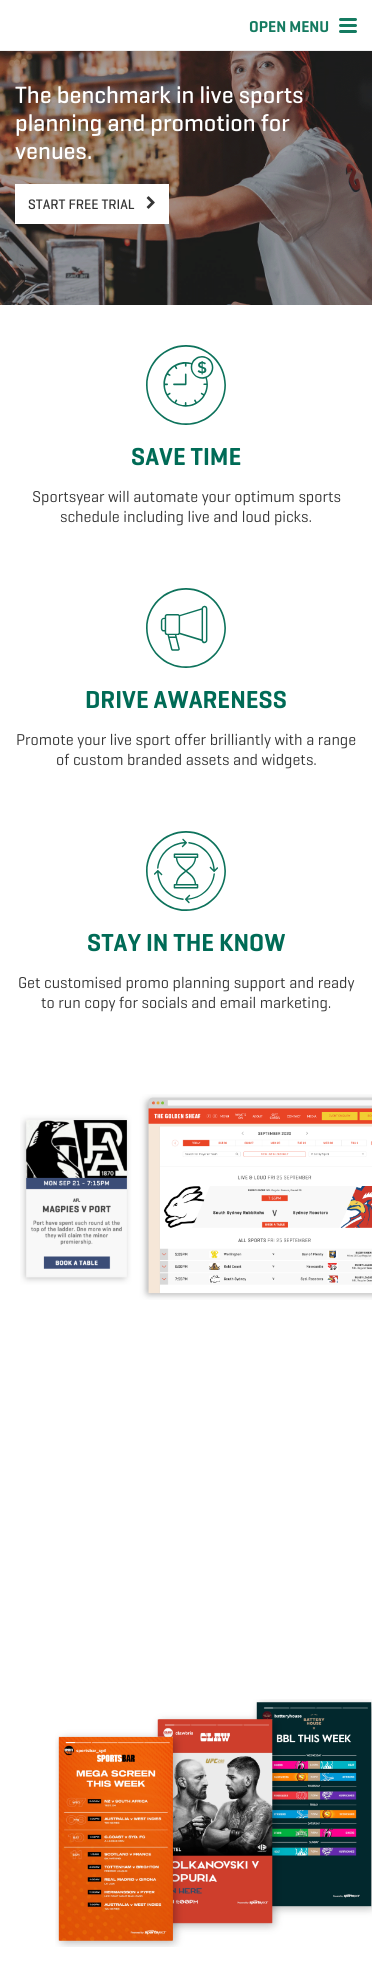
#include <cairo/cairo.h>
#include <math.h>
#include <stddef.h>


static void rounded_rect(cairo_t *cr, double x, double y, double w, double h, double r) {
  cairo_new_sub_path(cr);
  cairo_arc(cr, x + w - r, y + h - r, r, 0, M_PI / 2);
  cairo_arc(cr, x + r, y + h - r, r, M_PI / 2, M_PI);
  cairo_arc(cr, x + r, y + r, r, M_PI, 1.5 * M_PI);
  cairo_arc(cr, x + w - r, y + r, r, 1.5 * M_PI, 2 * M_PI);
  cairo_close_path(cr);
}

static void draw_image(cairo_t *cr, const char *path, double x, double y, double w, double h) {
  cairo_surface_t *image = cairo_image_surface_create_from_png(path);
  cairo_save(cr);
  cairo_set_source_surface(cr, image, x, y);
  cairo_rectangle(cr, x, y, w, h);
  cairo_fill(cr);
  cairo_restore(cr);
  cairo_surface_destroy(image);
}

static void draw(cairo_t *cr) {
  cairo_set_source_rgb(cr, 1, 1, 1);
  cairo_paint(cr);
  cairo_set_source_rgb(cr, 239 / 255.0, 239 / 255.0, 239 / 255.0);
  cairo_rectangle(cr, 0, 50, 372, 1);
  cairo_fill(cr);
  cairo_set_source_rgb(cr, 21 / 255.0, 123 / 255.0, 97 / 255.0);
  rounded_rect(cr, 339, 18, 18, 3, 1.5);
  cairo_fill(cr);
  rounded_rect(cr, 339, 24, 18, 3, 1.5);
  cairo_fill(cr);
  rounded_rect(cr, 339, 30, 18, 3, 1.5);
  cairo_fill(cr);
  draw_image(cr, "images/1.png", 0, 51, 372, 254);
  cairo_set_source_rgb(cr, 1, 1, 1);
  cairo_rectangle(cr, 15, 184, 154, 40);
  cairo_fill(cr);
  draw_image(cr, "images/2.png", 146, 196, 9, 13);
  draw_image(cr, "images/3.png", 146, 345, 80, 80);
  draw_image(cr, "images/4.png", 146, 588, 80, 80);
  draw_image(cr, "images/5.png", 146, 831, 80, 80);
  draw_image(cr, "images/6.png", 20, 1094, 352, 206);
  draw_image(cr, "images/7.png", 55, 1699, 317, 248);
  cairo_select_font_face(cr, "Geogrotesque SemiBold", CAIRO_FONT_SLANT_NORMAL, CAIRO_FONT_WEIGHT_NORMAL);
  cairo_set_font_size(cr, 16);
  cairo_set_source_rgb(cr, 21 / 255.0, 123 / 255.0, 97 / 255.0);
  cairo_move_to(cr, 249, 32);
  cairo_show_text(cr, "OPEN MENU");
  cairo_select_font_face(cr, "Geogrotesque Medium", CAIRO_FONT_SLANT_NORMAL, CAIRO_FONT_WEIGHT_NORMAL);
  cairo_set_font_size(cr, 24);
  cairo_set_source_rgb(cr, 1, 1, 1);
  cairo_move_to(cr, 15, 103);
  cairo_show_text(cr, "The benchmark in live sports");
  cairo_move_to(cr, 15, 131);
  cairo_show_text(cr, "planning and promotion for");
  cairo_move_to(cr, 15, 159);
  cairo_show_text(cr, "venues.");
  cairo_set_font_size(cr, 14);
  cairo_set_source_rgb(cr, 53 / 255.0, 53 / 255.0, 53 / 255.0);
  cairo_move_to(cr, 28, 209);
  cairo_show_text(cr, "START FREE TRIAL");
  cairo_select_font_face(cr, "Geogrotesque SemiBold", CAIRO_FONT_SLANT_NORMAL, CAIRO_FONT_WEIGHT_NORMAL);
  cairo_set_font_size(cr, 25);
  cairo_set_source_rgb(cr, 0, 107 / 255.0, 86 / 255.0);
  cairo_move_to(cr, 131, 465);
  cairo_show_text(cr, "SAVE TIME");
  cairo_select_font_face(cr, "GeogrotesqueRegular", CAIRO_FONT_SLANT_NORMAL, CAIRO_FONT_WEIGHT_NORMAL);
  cairo_set_font_size(cr, 16);
  cairo_set_source_rgb(cr, 53 / 255.0, 53 / 255.0, 53 / 255.0);
  cairo_move_to(cr, 32, 502);
  cairo_show_text(cr, "Sportsyear will automate your optimum sports");
  cairo_move_to(cr, 60, 522);
  cairo_show_text(cr, "schedule including live and loud picks.");
  cairo_select_font_face(cr, "Geogrotesque SemiBold", CAIRO_FONT_SLANT_NORMAL, CAIRO_FONT_WEIGHT_NORMAL);
  cairo_set_font_size(cr, 25);
  cairo_set_source_rgb(cr, 0, 107 / 255.0, 86 / 255.0);
  cairo_move_to(cr, 85, 708);
  cairo_show_text(cr, "DRIVE AWARENESS");
  cairo_select_font_face(cr, "GeogrotesqueRegular", CAIRO_FONT_SLANT_NORMAL, CAIRO_FONT_WEIGHT_NORMAL);
  cairo_set_font_size(cr, 16);
  cairo_set_source_rgb(cr, 53 / 255.0, 53 / 255.0, 53 / 255.0);
  cairo_move_to(cr, 16, 745);
  cairo_show_text(cr, "Promote your live sport offer brilliantly with a range");
  cairo_move_to(cr, 56, 765);
  cairo_show_text(cr, "of custom branded assets and widgets.");
  cairo_select_font_face(cr, "Geogrotesque SemiBold", CAIRO_FONT_SLANT_NORMAL, CAIRO_FONT_WEIGHT_NORMAL);
  cairo_set_font_size(cr, 25);
  cairo_set_source_rgb(cr, 0, 107 / 255.0, 86 / 255.0);
  cairo_move_to(cr, 87, 951);
  cairo_show_text(cr, "STAY IN THE KNOW");
  cairo_select_font_face(cr, "GeogrotesqueRegular", CAIRO_FONT_SLANT_NORMAL, CAIRO_FONT_WEIGHT_NORMAL);
  cairo_set_font_size(cr, 16);
  cairo_set_source_rgb(cr, 53 / 255.0, 53 / 255.0, 53 / 255.0);
  cairo_move_to(cr, 18, 988);
  cairo_show_text(cr, "Get customised promo planning support and ready");
  cairo_move_to(cr, 41, 1008);
  cairo_show_text(cr, "to run copy for socials and email marketing.");
}

int main(void) {
  cairo_surface_t *surface = cairo_image_surface_create(CAIRO_FORMAT_RGB24, 372, 1982);
  cairo_t *cr = cairo_create(surface);
  cairo_font_options_t *options = cairo_font_options_create();
  cairo_font_options_set_hint_metrics(options, CAIRO_HINT_METRICS_OFF);
  cairo_font_options_set_hint_style(options, CAIRO_HINT_STYLE_NONE);
  cairo_set_font_options(cr, options);
  cairo_set_miter_limit(cr, 4);
  draw(cr);
  cairo_surface_write_to_png(surface, "out.png");
  cairo_font_options_destroy(options);
  cairo_destroy(cr);
  cairo_surface_destroy(surface);
  return 0;
}
